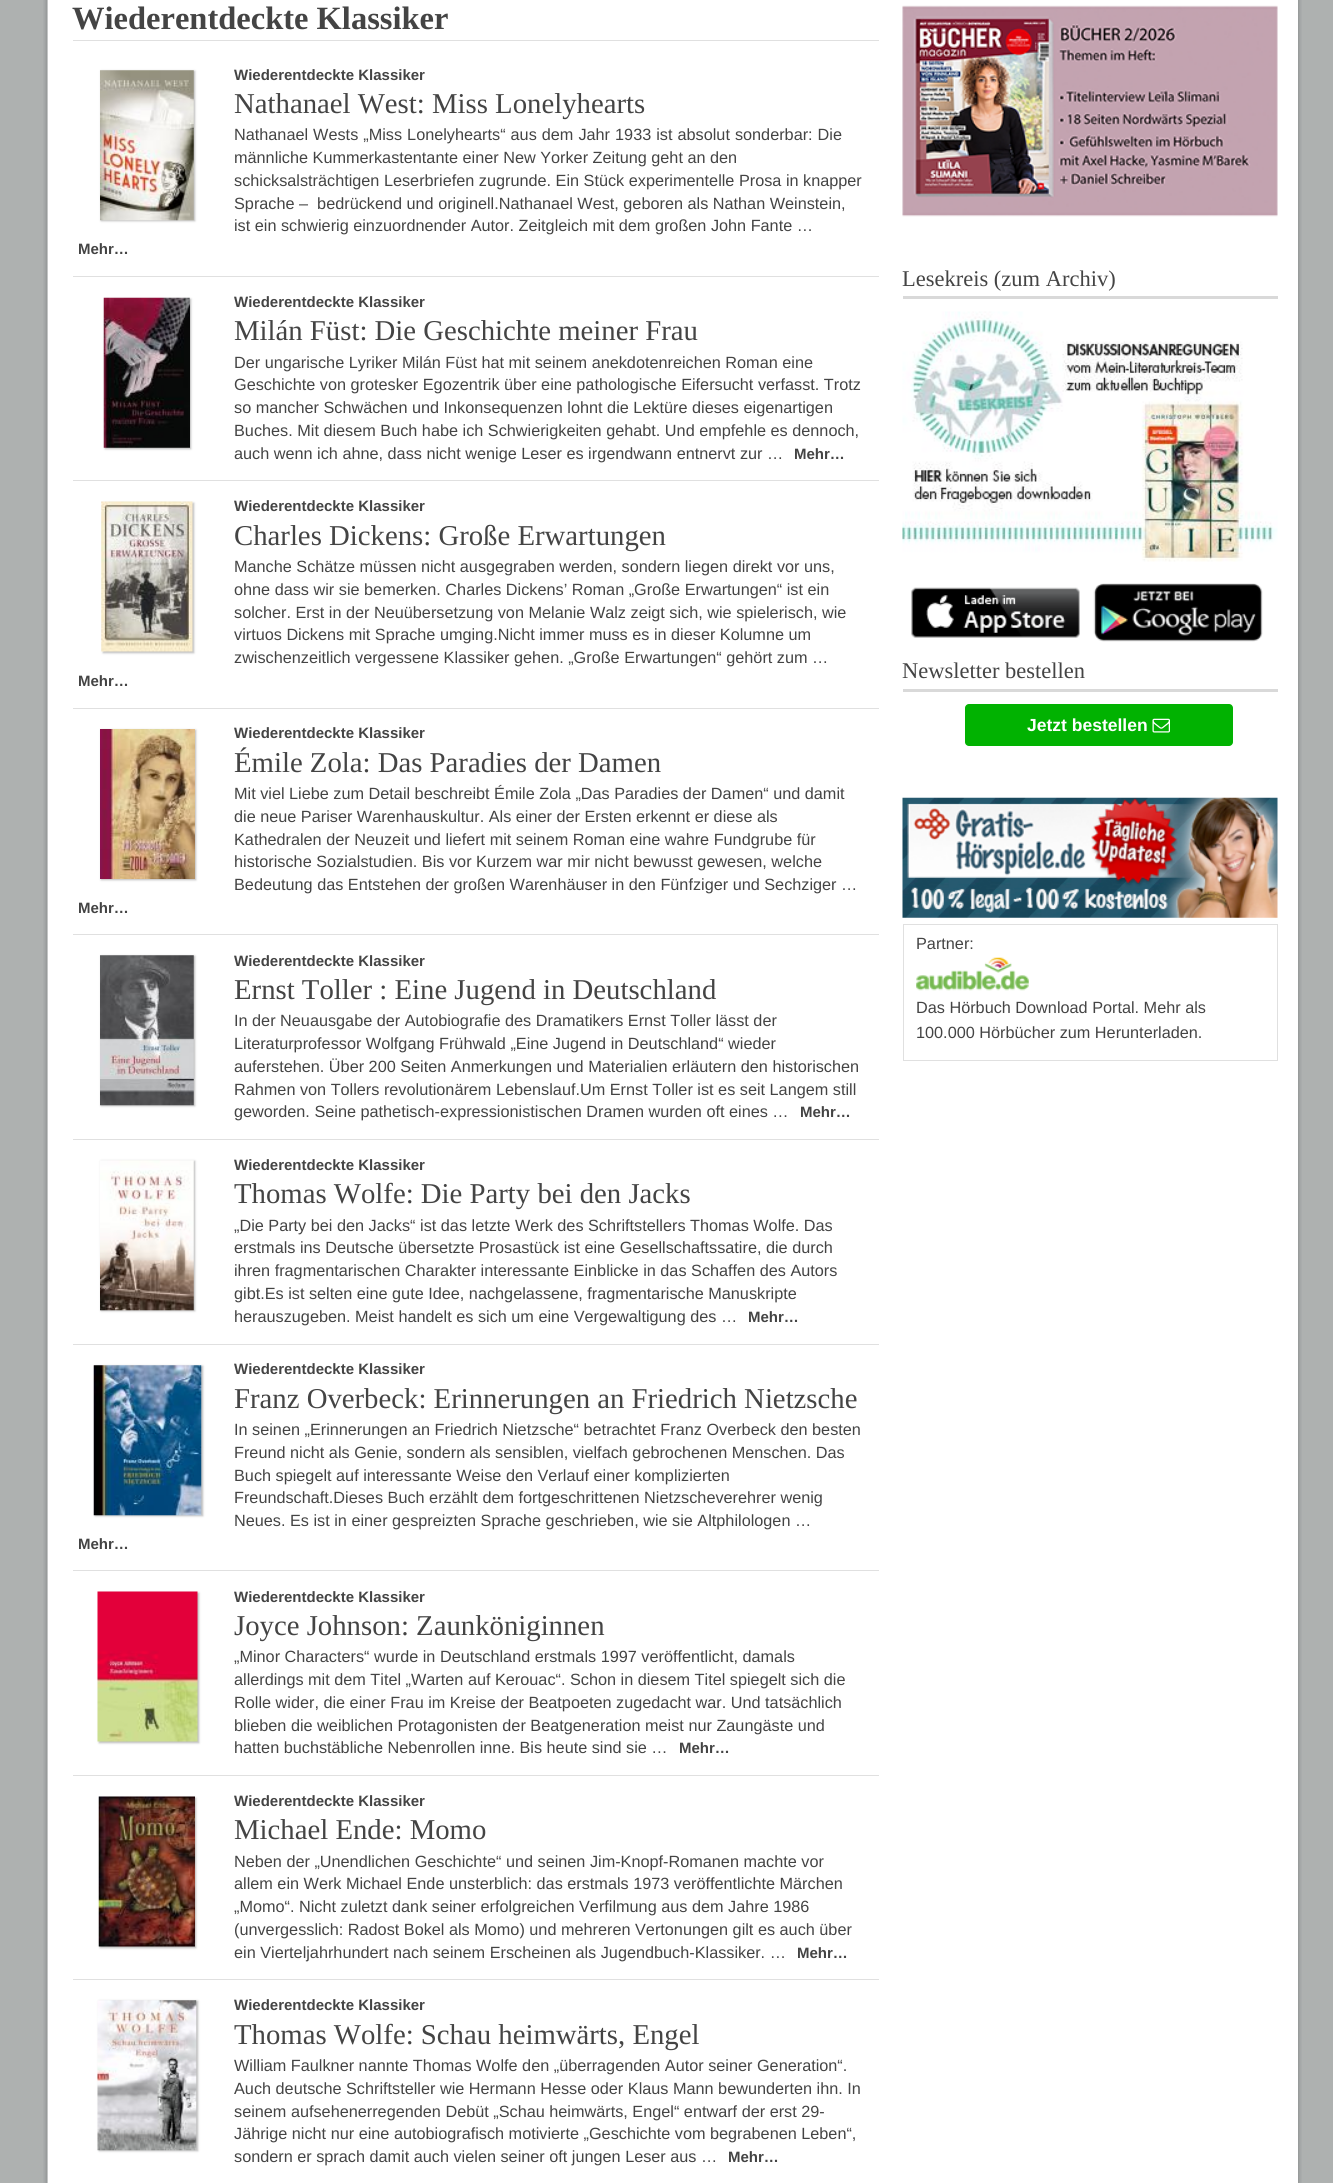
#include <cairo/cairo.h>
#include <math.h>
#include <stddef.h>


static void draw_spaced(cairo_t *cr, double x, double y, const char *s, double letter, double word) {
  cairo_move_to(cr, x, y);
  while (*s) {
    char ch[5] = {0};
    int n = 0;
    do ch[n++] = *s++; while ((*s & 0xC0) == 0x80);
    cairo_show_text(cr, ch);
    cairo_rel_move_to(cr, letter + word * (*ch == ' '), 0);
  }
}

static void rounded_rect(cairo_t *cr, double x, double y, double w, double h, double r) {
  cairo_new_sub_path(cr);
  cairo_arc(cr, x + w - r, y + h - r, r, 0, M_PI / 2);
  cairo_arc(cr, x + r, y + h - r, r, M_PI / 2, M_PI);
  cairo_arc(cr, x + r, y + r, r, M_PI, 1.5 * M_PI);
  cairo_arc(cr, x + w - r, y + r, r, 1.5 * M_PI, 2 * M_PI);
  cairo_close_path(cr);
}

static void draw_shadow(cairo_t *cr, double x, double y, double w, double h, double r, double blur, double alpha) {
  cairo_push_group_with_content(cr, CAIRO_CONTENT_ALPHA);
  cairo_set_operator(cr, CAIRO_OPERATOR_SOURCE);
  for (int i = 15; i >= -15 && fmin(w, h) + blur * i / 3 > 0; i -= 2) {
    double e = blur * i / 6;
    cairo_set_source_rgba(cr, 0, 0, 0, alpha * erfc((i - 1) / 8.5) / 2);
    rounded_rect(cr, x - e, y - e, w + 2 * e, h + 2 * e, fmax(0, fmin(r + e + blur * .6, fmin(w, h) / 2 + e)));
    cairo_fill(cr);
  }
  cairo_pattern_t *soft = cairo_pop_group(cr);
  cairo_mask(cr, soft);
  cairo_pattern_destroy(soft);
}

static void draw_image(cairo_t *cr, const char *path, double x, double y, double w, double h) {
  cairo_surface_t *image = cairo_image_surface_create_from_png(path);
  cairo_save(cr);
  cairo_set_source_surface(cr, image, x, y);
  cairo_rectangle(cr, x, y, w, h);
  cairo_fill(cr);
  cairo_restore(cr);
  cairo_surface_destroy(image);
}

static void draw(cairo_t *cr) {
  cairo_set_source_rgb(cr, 174 / 255.0, 177 / 255.0, 176 / 255.0);
  cairo_paint(cr);
  draw_image(cr, "images/1.png", 43, 0, 1259, 2183);
  cairo_set_source_rgb(cr, 1, 1, 1);
  cairo_rectangle(cr, 1297, 0, 1, 2183);
  cairo_fill(cr);
  cairo_set_source_rgb(cr, 224 / 255.0, 224 / 255.0, 224 / 255.0);
  cairo_rectangle(cr, 73, 40, 806, 1);
  cairo_fill(cr);
  cairo_set_source_rgb(cr, 189 / 255.0, 189 / 255.0, 189 / 255.0);
  draw_shadow(cr, 101, 71, 94, 150, 0, 1, 1);
  draw_image(cr, "images/2.png", 100, 70, 94, 151);
  cairo_set_source_rgb(cr, 224 / 255.0, 224 / 255.0, 224 / 255.0);
  cairo_rectangle(cr, 73, 276, 806, 1);
  cairo_fill(cr);
  cairo_set_source_rgb(cr, 189 / 255.0, 189 / 255.0, 189 / 255.0);
  draw_shadow(cr, 105, 299, 86, 150, 0, 1, 1);
  draw_image(cr, "images/3.png", 103, 297, 87, 151);
  cairo_set_source_rgb(cr, 224 / 255.0, 224 / 255.0, 224 / 255.0);
  cairo_rectangle(cr, 73, 480, 806, 1);
  cairo_fill(cr);
  cairo_set_source_rgb(cr, 189 / 255.0, 189 / 255.0, 189 / 255.0);
  draw_shadow(cr, 103, 503, 91, 150, 0, 1, 1);
  draw_image(cr, "images/4.png", 101, 501, 92, 151);
  cairo_set_source_rgb(cr, 224 / 255.0, 224 / 255.0, 224 / 255.0);
  cairo_rectangle(cr, 73, 708, 806, 1);
  cairo_fill(cr);
  cairo_set_source_rgb(cr, 189 / 255.0, 189 / 255.0, 189 / 255.0);
  draw_shadow(cr, 101, 730, 95, 150, 0, 1, 1);
  draw_image(cr, "images/5.png", 100, 729, 95, 150);
  cairo_set_source_rgb(cr, 224 / 255.0, 224 / 255.0, 224 / 255.0);
  cairo_rectangle(cr, 73, 934, 806, 1);
  cairo_fill(cr);
  cairo_set_source_rgb(cr, 189 / 255.0, 189 / 255.0, 189 / 255.0);
  draw_shadow(cr, 101, 956, 94, 150, 0, 1, 1);
  draw_image(cr, "images/6.png", 100, 955, 94, 151);
  cairo_set_source_rgb(cr, 224 / 255.0, 224 / 255.0, 224 / 255.0);
  cairo_rectangle(cr, 73, 1139, 806, 1);
  cairo_fill(cr);
  cairo_set_source_rgb(cr, 189 / 255.0, 189 / 255.0, 189 / 255.0);
  draw_shadow(cr, 101, 1161, 94, 150, 0, 1, 1);
  draw_image(cr, "images/7.png", 100, 1160, 94, 151);
  cairo_set_source_rgb(cr, 224 / 255.0, 224 / 255.0, 224 / 255.0);
  cairo_rectangle(cr, 73, 1344, 806, 1);
  cairo_fill(cr);
  cairo_set_source_rgb(cr, 189 / 255.0, 189 / 255.0, 189 / 255.0);
  draw_shadow(cr, 95, 1366, 108, 150, 0, 1, 1);
  draw_image(cr, "images/8.png", 93, 1365, 109, 151);
  cairo_set_source_rgb(cr, 224 / 255.0, 224 / 255.0, 224 / 255.0);
  cairo_rectangle(cr, 73, 1570, 806, 1);
  cairo_fill(cr);
  cairo_set_source_rgb(cr, 189 / 255.0, 189 / 255.0, 189 / 255.0);
  draw_shadow(cr, 99, 1593, 100, 150, 0, 1, 1);
  draw_image(cr, "images/9.png", 97, 1591, 101, 151);
  cairo_set_source_rgb(cr, 224 / 255.0, 224 / 255.0, 224 / 255.0);
  cairo_rectangle(cr, 73, 1775, 806, 1);
  cairo_fill(cr);
  cairo_set_source_rgb(cr, 189 / 255.0, 189 / 255.0, 189 / 255.0);
  draw_shadow(cr, 100, 1798, 96, 150, 0, 1, 1);
  draw_image(cr, "images/10.png", 98, 1796, 97, 151);
  cairo_set_source_rgb(cr, 224 / 255.0, 224 / 255.0, 224 / 255.0);
  cairo_rectangle(cr, 73, 1979, 806, 1);
  cairo_fill(cr);
  cairo_set_source_rgb(cr, 189 / 255.0, 189 / 255.0, 189 / 255.0);
  draw_shadow(cr, 99, 2001, 99, 150, 0, 1, 1);
  draw_image(cr, "images/11.png", 97, 2000, 100, 151);
  draw_image(cr, "images/12.png", 902, 5, 376, 212);
  cairo_set_source_rgb(cr, 217 / 255.0, 217 / 255.0, 217 / 255.0);
  cairo_rectangle(cr, 903, 296, 375, 3);
  cairo_fill(cr);
  draw_image(cr, "images/13.png", 902, 311, 376, 251);
  draw_image(cr, "images/14.png", 911, 587, 169, 51);
  draw_image(cr, "images/15.png", 1093, 583, 170, 59);
  cairo_rectangle(cr, 903, 689, 375, 3);
  cairo_fill(cr);
  cairo_set_source_rgb(cr, 1 / 255.0, 178 / 255.0, 1 / 255.0);
  rounded_rect(cr, 965, 704, 268, 42, 4);
  cairo_fill(cr);
  draw_image(cr, "images/16.png", 1152, 718, 18, 15);
  draw_image(cr, "images/17.png", 902, 797, 376, 121);
  cairo_rectangle(cr, 903.5, 924.5, 374, 136);
  cairo_set_source_rgb(cr, 224 / 255.0, 224 / 255.0, 224 / 255.0);
  cairo_set_line_width(cr, 1);
  cairo_stroke(cr);
  draw_image(cr, "images/18.png", 916, 957, 113, 34);
  cairo_select_font_face(cr, "Liberation Serif", CAIRO_FONT_SLANT_NORMAL, CAIRO_FONT_WEIGHT_BOLD);
  cairo_set_font_size(cr, 32.5);
  cairo_set_source_rgb(cr, 68 / 255.0, 68 / 255.0, 68 / 255.0);
  cairo_move_to(cr, 72, 29);
  cairo_show_text(cr, "Wiederentdeckte Klassiker");
  cairo_select_font_face(cr, "Liberation Sans", CAIRO_FONT_SLANT_NORMAL, CAIRO_FONT_WEIGHT_BOLD);
  cairo_set_font_size(cr, 15);
  cairo_move_to(cr, 234, 80);
  cairo_show_text(cr, "Wiederentdeckte Klassiker");
  cairo_select_font_face(cr, "Liberation Serif", CAIRO_FONT_SLANT_NORMAL, CAIRO_FONT_WEIGHT_NORMAL);
  cairo_set_font_size(cr, 28.75);
  cairo_move_to(cr, 234, 113);
  cairo_show_text(cr, "Nathanael West: Miss Lonelyhearts");
  cairo_select_font_face(cr, "Liberation Sans", CAIRO_FONT_SLANT_NORMAL, CAIRO_FONT_WEIGHT_NORMAL);
  cairo_set_font_size(cr, 16.25);
  draw_spaced(cr, 234, 140, "Nathanael Wests „Miss Lonelyhearts“ aus dem Jahr 1933 ist absolut sonderbar: Die", 0, 0.5);
  cairo_move_to(cr, 234, 163);
  cairo_show_text(cr, "männliche Kummerkastentante einer New Yorker Zeitung geht an den");
  cairo_move_to(cr, 234, 186);
  cairo_show_text(cr, "schicksalsträchtigen Leserbriefen zugrunde. Ein Stück experimentelle Prosa in knapper");
  cairo_move_to(cr, 234, 209);
  cairo_show_text(cr, "Sprache –  bedrückend und originell.Nathanael West, geboren als Nathan Weinstein,");
  cairo_move_to(cr, 234, 231);
  cairo_show_text(cr, "ist ein schwierig einzuordnender Autor. Zeitgleich mit dem großen John Fante …");
  cairo_select_font_face(cr, "Liberation Sans", CAIRO_FONT_SLANT_NORMAL, CAIRO_FONT_WEIGHT_BOLD);
  cairo_set_font_size(cr, 15);
  cairo_move_to(cr, 78, 254);
  cairo_show_text(cr, "Mehr…");
  cairo_move_to(cr, 234, 307);
  cairo_show_text(cr, "Wiederentdeckte Klassiker");
  cairo_select_font_face(cr, "Liberation Serif", CAIRO_FONT_SLANT_NORMAL, CAIRO_FONT_WEIGHT_NORMAL);
  cairo_set_font_size(cr, 28.75);
  cairo_move_to(cr, 234, 340);
  cairo_show_text(cr, "Milán Füst: Die Geschichte meiner Frau");
  cairo_select_font_face(cr, "Liberation Sans", CAIRO_FONT_SLANT_NORMAL, CAIRO_FONT_WEIGHT_NORMAL);
  cairo_set_font_size(cr, 16.25);
  cairo_move_to(cr, 234, 368);
  cairo_show_text(cr, "Der ungarische Lyriker Milán Füst hat mit seinem anekdotenreichen Roman eine");
  cairo_move_to(cr, 234, 390);
  cairo_show_text(cr, "Geschichte von grotesker Egozentrik über eine pathologische Eifersucht verfasst. Trotz");
  cairo_move_to(cr, 234, 413);
  cairo_show_text(cr, "so mancher Schwächen und Inkonsequenzen lohnt die Lektüre dieses eigenartigen");
  cairo_move_to(cr, 234, 436);
  cairo_show_text(cr, "Buches. Mit diesem Buch habe ich Schwierigkeiten gehabt. Und empfehle es dennoch,");
  cairo_move_to(cr, 234, 459);
  cairo_show_text(cr, "auch wenn ich ahne, dass nicht wenige Leser es irgendwann entnervt zur …");
  cairo_select_font_face(cr, "Liberation Sans", CAIRO_FONT_SLANT_NORMAL, CAIRO_FONT_WEIGHT_BOLD);
  cairo_set_font_size(cr, 15);
  cairo_move_to(cr, 794, 459);
  cairo_show_text(cr, "Mehr…");
  cairo_move_to(cr, 234, 511);
  cairo_show_text(cr, "Wiederentdeckte Klassiker");
  cairo_select_font_face(cr, "Liberation Serif", CAIRO_FONT_SLANT_NORMAL, CAIRO_FONT_WEIGHT_NORMAL);
  cairo_set_font_size(cr, 28.75);
  cairo_move_to(cr, 234, 545);
  cairo_show_text(cr, "Charles Dickens: Große Erwartungen");
  cairo_select_font_face(cr, "Liberation Sans", CAIRO_FONT_SLANT_NORMAL, CAIRO_FONT_WEIGHT_NORMAL);
  cairo_set_font_size(cr, 16.25);
  cairo_move_to(cr, 234, 572);
  cairo_show_text(cr, "Manche Schätze müssen nicht ausgegraben werden, sondern liegen direkt vor uns,");
  cairo_move_to(cr, 234, 595);
  cairo_show_text(cr, "ohne dass wir sie bemerken. Charles Dickens’ Roman „Große Erwartungen“ ist ein");
  cairo_move_to(cr, 234, 618);
  cairo_show_text(cr, "solcher. Erst in der Neuübersetzung von Melanie Walz zeigt sich, wie spielerisch, wie");
  cairo_move_to(cr, 234, 640);
  cairo_show_text(cr, "virtuos Dickens mit Sprache umging.Nicht immer muss es in dieser Kolumne um");
  cairo_move_to(cr, 234, 663);
  cairo_show_text(cr, "zwischenzeitlich vergessene Klassiker gehen. „Große Erwartungen“ gehört zum …");
  cairo_select_font_face(cr, "Liberation Sans", CAIRO_FONT_SLANT_NORMAL, CAIRO_FONT_WEIGHT_BOLD);
  cairo_set_font_size(cr, 15);
  cairo_move_to(cr, 78, 686);
  cairo_show_text(cr, "Mehr…");
  cairo_move_to(cr, 234, 738);
  cairo_show_text(cr, "Wiederentdeckte Klassiker");
  cairo_select_font_face(cr, "Liberation Serif", CAIRO_FONT_SLANT_NORMAL, CAIRO_FONT_WEIGHT_NORMAL);
  cairo_set_font_size(cr, 28.75);
  cairo_move_to(cr, 234, 772);
  cairo_show_text(cr, "Émile Zola: Das Paradies der Damen");
  cairo_select_font_face(cr, "Liberation Sans", CAIRO_FONT_SLANT_NORMAL, CAIRO_FONT_WEIGHT_NORMAL);
  cairo_set_font_size(cr, 16.25);
  cairo_move_to(cr, 234, 799);
  cairo_show_text(cr, "Mit viel Liebe zum Detail beschreibt Émile Zola „Das Paradies der Damen“ und damit");
  cairo_move_to(cr, 234, 822);
  cairo_show_text(cr, "die neue Pariser Warenhauskultur. Als einer der Ersten erkennt er diese als");
  cairo_move_to(cr, 234, 845);
  cairo_show_text(cr, "Kathedralen der Neuzeit und liefert mit seinem Roman eine wahre Fundgrube für");
  cairo_move_to(cr, 234, 867);
  cairo_show_text(cr, "historische Sozialstudien. Bis vor Kurzem war mir nicht bewusst gewesen, welche");
  cairo_move_to(cr, 234, 890);
  cairo_show_text(cr, "Bedeutung das Entstehen der großen Warenhäuser in den Fünfziger und Sechziger …");
  cairo_select_font_face(cr, "Liberation Sans", CAIRO_FONT_SLANT_NORMAL, CAIRO_FONT_WEIGHT_BOLD);
  cairo_set_font_size(cr, 15);
  cairo_move_to(cr, 78, 913);
  cairo_show_text(cr, "Mehr…");
  cairo_move_to(cr, 234, 966);
  cairo_show_text(cr, "Wiederentdeckte Klassiker");
  cairo_select_font_face(cr, "Liberation Serif", CAIRO_FONT_SLANT_NORMAL, CAIRO_FONT_WEIGHT_NORMAL);
  cairo_set_font_size(cr, 28.75);
  cairo_move_to(cr, 234, 999);
  cairo_show_text(cr, "Ernst Toller : Eine Jugend in Deutschland");
  cairo_select_font_face(cr, "Liberation Sans", CAIRO_FONT_SLANT_NORMAL, CAIRO_FONT_WEIGHT_NORMAL);
  cairo_set_font_size(cr, 16.25);
  cairo_move_to(cr, 234, 1026);
  cairo_show_text(cr, "In der Neuausgabe der Autobiografie des Dramatikers Ernst Toller lässt der");
  cairo_move_to(cr, 234, 1049);
  cairo_show_text(cr, "Literaturprofessor Wolfgang Frühwald „Eine Jugend in Deutschland“ wieder");
  cairo_move_to(cr, 234, 1072);
  cairo_show_text(cr, "auferstehen. Über 200 Seiten Anmerkungen und Materialien erläutern den historischen");
  cairo_move_to(cr, 234, 1095);
  cairo_show_text(cr, "Rahmen von Tollers revolutionärem Lebenslauf.Um Ernst Toller ist es seit Langem still");
  cairo_move_to(cr, 234, 1117);
  cairo_show_text(cr, "geworden. Seine pathetisch-expressionistischen Dramen wurden oft eines …");
  cairo_select_font_face(cr, "Liberation Sans", CAIRO_FONT_SLANT_NORMAL, CAIRO_FONT_WEIGHT_BOLD);
  cairo_set_font_size(cr, 15);
  cairo_move_to(cr, 800, 1117);
  cairo_show_text(cr, "Mehr…");
  cairo_move_to(cr, 234, 1170);
  cairo_show_text(cr, "Wiederentdeckte Klassiker");
  cairo_select_font_face(cr, "Liberation Serif", CAIRO_FONT_SLANT_NORMAL, CAIRO_FONT_WEIGHT_NORMAL);
  cairo_set_font_size(cr, 28.75);
  cairo_move_to(cr, 234, 1203);
  cairo_show_text(cr, "Thomas Wolfe: Die Party bei den Jacks");
  cairo_select_font_face(cr, "Liberation Sans", CAIRO_FONT_SLANT_NORMAL, CAIRO_FONT_WEIGHT_NORMAL);
  cairo_set_font_size(cr, 16.25);
  cairo_move_to(cr, 234, 1231);
  cairo_show_text(cr, "„Die Party bei den Jacks“ ist das letzte Werk des Schriftstellers Thomas Wolfe. Das");
  cairo_move_to(cr, 234, 1253);
  cairo_show_text(cr, "erstmals ins Deutsche übersetzte Prosastück ist eine Gesellschaftssatire, die durch");
  cairo_move_to(cr, 234, 1276);
  cairo_show_text(cr, "ihren fragmentarischen Charakter interessante Einblicke in das Schaffen des Autors");
  cairo_move_to(cr, 234, 1299);
  cairo_show_text(cr, "gibt.Es ist selten eine gute Idee, nachgelassene, fragmentarische Manuskripte");
  cairo_move_to(cr, 234, 1322);
  cairo_show_text(cr, "herauszugeben. Meist handelt es sich um eine Vergewaltigung des …");
  cairo_select_font_face(cr, "Liberation Sans", CAIRO_FONT_SLANT_NORMAL, CAIRO_FONT_WEIGHT_BOLD);
  cairo_set_font_size(cr, 15);
  cairo_move_to(cr, 748, 1322);
  cairo_show_text(cr, "Mehr…");
  cairo_move_to(cr, 234, 1374);
  cairo_show_text(cr, "Wiederentdeckte Klassiker");
  cairo_select_font_face(cr, "Liberation Serif", CAIRO_FONT_SLANT_NORMAL, CAIRO_FONT_WEIGHT_NORMAL);
  cairo_set_font_size(cr, 28.75);
  cairo_move_to(cr, 234, 1408);
  cairo_show_text(cr, "Franz Overbeck: Erinnerungen an Friedrich Nietzsche");
  cairo_select_font_face(cr, "Liberation Sans", CAIRO_FONT_SLANT_NORMAL, CAIRO_FONT_WEIGHT_NORMAL);
  cairo_set_font_size(cr, 16.25);
  cairo_move_to(cr, 234, 1435);
  cairo_show_text(cr, "In seinen „Erinnerungen an Friedrich Nietzsche“ betrachtet Franz Overbeck den besten");
  cairo_move_to(cr, 234, 1458);
  cairo_show_text(cr, "Freund nicht als Genie, sondern als sensiblen, vielfach gebrochenen Menschen. Das");
  cairo_move_to(cr, 234, 1481);
  cairo_show_text(cr, "Buch spiegelt auf interessante Weise den Verlauf einer komplizierten");
  cairo_move_to(cr, 234, 1503);
  cairo_show_text(cr, "Freundschaft.Dieses Buch erzählt dem fortgeschrittenen Nietzscheverehrer wenig");
  cairo_move_to(cr, 234, 1526);
  cairo_show_text(cr, "Neues. Es ist in einer gespreizten Sprache geschrieben, wie sie Altphilologen …");
  cairo_select_font_face(cr, "Liberation Sans", CAIRO_FONT_SLANT_NORMAL, CAIRO_FONT_WEIGHT_BOLD);
  cairo_set_font_size(cr, 15);
  cairo_move_to(cr, 78, 1549);
  cairo_show_text(cr, "Mehr…");
  cairo_move_to(cr, 234, 1602);
  cairo_show_text(cr, "Wiederentdeckte Klassiker");
  cairo_select_font_face(cr, "Liberation Serif", CAIRO_FONT_SLANT_NORMAL, CAIRO_FONT_WEIGHT_NORMAL);
  cairo_set_font_size(cr, 28.75);
  cairo_move_to(cr, 234, 1635);
  cairo_show_text(cr, "Joyce Johnson: Zaunköniginnen");
  cairo_select_font_face(cr, "Liberation Sans", CAIRO_FONT_SLANT_NORMAL, CAIRO_FONT_WEIGHT_NORMAL);
  cairo_set_font_size(cr, 16.25);
  cairo_move_to(cr, 234, 1662);
  cairo_show_text(cr, "„Minor Characters“ wurde in Deutschland erstmals 1997 veröffentlicht, damals");
  cairo_move_to(cr, 234, 1685);
  cairo_show_text(cr, "allerdings mit dem Titel „Warten auf Kerouac“. Schon in diesem Titel spiegelt sich die");
  cairo_move_to(cr, 234, 1708);
  cairo_show_text(cr, "Rolle wider, die einer Frau im Kreise der Beatpoeten zugedacht war. Und tatsächlich");
  cairo_move_to(cr, 234, 1731);
  cairo_show_text(cr, "blieben die weiblichen Protagonisten der Beatgeneration meist nur Zaungäste und");
  cairo_move_to(cr, 234, 1753);
  cairo_show_text(cr, "hatten buchstäbliche Nebenrollen inne. Bis heute sind sie …");
  cairo_select_font_face(cr, "Liberation Sans", CAIRO_FONT_SLANT_NORMAL, CAIRO_FONT_WEIGHT_BOLD);
  cairo_set_font_size(cr, 15);
  cairo_move_to(cr, 679, 1753);
  cairo_show_text(cr, "Mehr…");
  cairo_move_to(cr, 234, 1806);
  cairo_show_text(cr, "Wiederentdeckte Klassiker");
  cairo_select_font_face(cr, "Liberation Serif", CAIRO_FONT_SLANT_NORMAL, CAIRO_FONT_WEIGHT_NORMAL);
  cairo_set_font_size(cr, 28.75);
  cairo_move_to(cr, 234, 1839);
  cairo_show_text(cr, "Michael Ende: Momo");
  cairo_select_font_face(cr, "Liberation Sans", CAIRO_FONT_SLANT_NORMAL, CAIRO_FONT_WEIGHT_NORMAL);
  cairo_set_font_size(cr, 16.25);
  cairo_move_to(cr, 234, 1867);
  cairo_show_text(cr, "Neben der „Unendlichen Geschichte“ und seinen Jim-Knopf-Romanen machte vor");
  cairo_move_to(cr, 234, 1889);
  cairo_show_text(cr, "allem ein Werk Michael Ende unsterblich: das erstmals 1973 veröffentlichte Märchen");
  cairo_move_to(cr, 234, 1912);
  cairo_show_text(cr, "„Momo“. Nicht zuletzt dank seiner erfolgreichen Verfilmung aus dem Jahre 1986");
  cairo_move_to(cr, 234, 1935);
  cairo_show_text(cr, "(unvergesslich: Radost Bokel als Momo) und mehreren Vertonungen gilt es auch über");
  cairo_move_to(cr, 234, 1958);
  cairo_show_text(cr, "ein Vierteljahrhundert nach seinem Erscheinen als Jugendbuch-Klassiker. …");
  cairo_select_font_face(cr, "Liberation Sans", CAIRO_FONT_SLANT_NORMAL, CAIRO_FONT_WEIGHT_BOLD);
  cairo_set_font_size(cr, 15);
  cairo_move_to(cr, 797, 1958);
  cairo_show_text(cr, "Mehr…");
  cairo_move_to(cr, 234, 2010);
  cairo_show_text(cr, "Wiederentdeckte Klassiker");
  cairo_select_font_face(cr, "Liberation Serif", CAIRO_FONT_SLANT_NORMAL, CAIRO_FONT_WEIGHT_NORMAL);
  cairo_set_font_size(cr, 28.75);
  cairo_move_to(cr, 234, 2044);
  cairo_show_text(cr, "Thomas Wolfe: Schau heimwärts, Engel");
  cairo_select_font_face(cr, "Liberation Sans", CAIRO_FONT_SLANT_NORMAL, CAIRO_FONT_WEIGHT_NORMAL);
  cairo_set_font_size(cr, 16.25);
  cairo_move_to(cr, 234, 2071);
  cairo_show_text(cr, "William Faulkner nannte Thomas Wolfe den „überragenden Autor seiner Generation“.");
  cairo_move_to(cr, 234, 2094);
  cairo_show_text(cr, "Auch deutsche Schriftsteller wie Hermann Hesse oder Klaus Mann bewunderten ihn. In");
  cairo_move_to(cr, 234, 2117);
  cairo_show_text(cr, "seinem aufsehenerregenden Debüt „Schau heimwärts, Engel“ entwarf der erst 29-");
  cairo_move_to(cr, 234, 2139);
  cairo_show_text(cr, "Jährige nicht nur eine autobiografisch motivierte „Geschichte vom begrabenen Leben“,");
  cairo_move_to(cr, 234, 2162);
  cairo_show_text(cr, "sondern er sprach damit auch vielen seiner oft jungen Leser aus …");
  cairo_select_font_face(cr, "Liberation Sans", CAIRO_FONT_SLANT_NORMAL, CAIRO_FONT_WEIGHT_BOLD);
  cairo_set_font_size(cr, 15);
  cairo_move_to(cr, 728, 2162);
  cairo_show_text(cr, "Mehr…");
  cairo_select_font_face(cr, "Liberation Serif", CAIRO_FONT_SLANT_NORMAL, CAIRO_FONT_WEIGHT_NORMAL);
  cairo_set_font_size(cr, 22.5);
  cairo_move_to(cr, 902, 286);
  cairo_show_text(cr, "Lesekreis (zum Archiv)");
  cairo_move_to(cr, 902, 678);
  cairo_show_text(cr, "Newsletter bestellen");
  cairo_select_font_face(cr, "Liberation Sans", CAIRO_FONT_SLANT_NORMAL, CAIRO_FONT_WEIGHT_BOLD);
  cairo_set_font_size(cr, 17.5);
  cairo_set_source_rgb(cr, 1, 1, 1);
  cairo_move_to(cr, 1027, 731);
  cairo_show_text(cr, "Jetzt bestellen");
  cairo_select_font_face(cr, "Liberation Sans", CAIRO_FONT_SLANT_NORMAL, CAIRO_FONT_WEIGHT_NORMAL);
  cairo_set_font_size(cr, 16.25);
  cairo_set_source_rgb(cr, 68 / 255.0, 68 / 255.0, 68 / 255.0);
  cairo_move_to(cr, 916, 949);
  cairo_show_text(cr, "Partner:");
  cairo_move_to(cr, 916, 1013);
  cairo_show_text(cr, "Das Hörbuch Download Portal. Mehr als");
  cairo_move_to(cr, 916, 1038);
  cairo_show_text(cr, "100.000 Hörbücher zum Herunterladen.");
}

int main(void) {
  cairo_surface_t *surface = cairo_image_surface_create(CAIRO_FORMAT_RGB24, 1333, 2183);
  cairo_t *cr = cairo_create(surface);
  cairo_font_options_t *options = cairo_font_options_create();
  cairo_font_options_set_hint_metrics(options, CAIRO_HINT_METRICS_OFF);
  cairo_font_options_set_hint_style(options, CAIRO_HINT_STYLE_NONE);
  cairo_set_font_options(cr, options);
  cairo_set_miter_limit(cr, 4);
  draw(cr);
  cairo_surface_write_to_png(surface, "out.png");
  cairo_font_options_destroy(options);
  cairo_destroy(cr);
  cairo_surface_destroy(surface);
  return 0;
}
